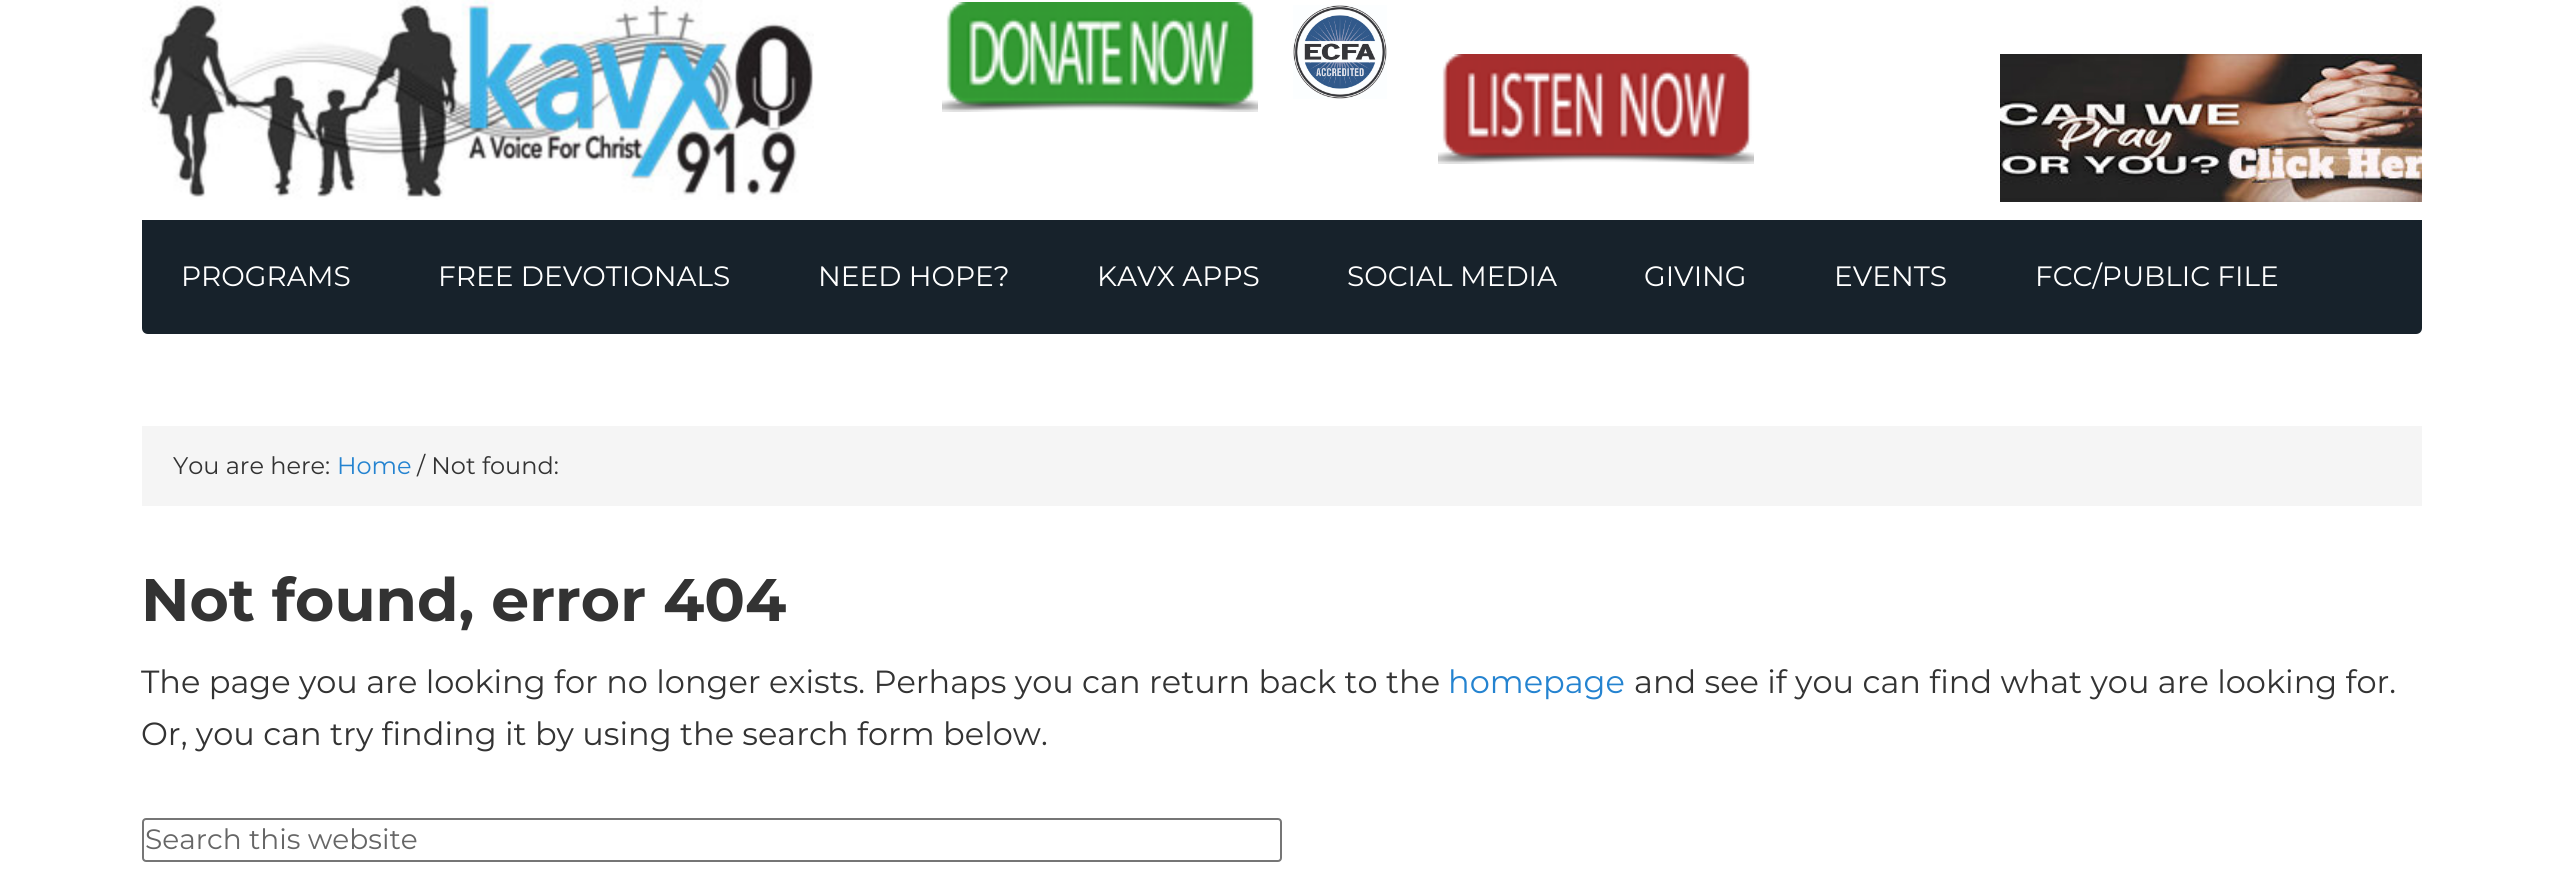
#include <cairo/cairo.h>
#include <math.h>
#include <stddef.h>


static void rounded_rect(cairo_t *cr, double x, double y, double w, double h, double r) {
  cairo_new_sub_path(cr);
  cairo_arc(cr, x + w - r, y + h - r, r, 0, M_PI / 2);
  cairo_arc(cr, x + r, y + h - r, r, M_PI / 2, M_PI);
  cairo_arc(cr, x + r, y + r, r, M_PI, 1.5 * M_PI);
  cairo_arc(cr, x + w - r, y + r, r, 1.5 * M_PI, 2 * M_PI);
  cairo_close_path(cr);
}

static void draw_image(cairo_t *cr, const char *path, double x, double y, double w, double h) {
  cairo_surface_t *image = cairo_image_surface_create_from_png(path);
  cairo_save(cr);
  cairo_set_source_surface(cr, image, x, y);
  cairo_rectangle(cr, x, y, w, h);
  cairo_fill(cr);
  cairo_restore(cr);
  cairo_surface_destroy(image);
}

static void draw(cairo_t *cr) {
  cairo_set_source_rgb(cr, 1, 1, 1);
  cairo_paint(cr);
  draw_image(cr, "images/1.png", 142, 0, 672, 200);
  draw_image(cr, "images/2.png", 942, 2, 316, 110);
  draw_image(cr, "images/3.png", 1293, 5, 94, 94);
  draw_image(cr, "images/4.png", 1438, 54, 316, 110);
  draw_image(cr, "images/5.png", 2000, 54, 422, 148);
  cairo_set_source_rgb(cr, 23 / 255.0, 34 / 255.0, 43 / 255.0);
  cairo_new_path(cr);
  cairo_move_to(cr, 142, 220);
  cairo_line_to(cr, 2422, 220);
  cairo_line_to(cr, 2422, 328);
  cairo_curve_to(cr, 2422, 331.5, 2419.5, 334, 2416, 334);
  cairo_line_to(cr, 148, 334);
  cairo_curve_to(cr, 144.5, 334, 142, 331.5, 142, 328);
  cairo_close_path(cr);
  cairo_fill(cr);
  cairo_set_source_rgb(cr, 245 / 255.0, 245 / 255.0, 245 / 255.0);
  cairo_rectangle(cr, 142, 426, 2280, 80);
  cairo_fill(cr);
  rounded_rect(cr, 143, 819, 1138, 42, 3);
  cairo_set_source_rgb(cr, 118 / 255.0, 118 / 255.0, 118 / 255.0);
  cairo_stroke(cr);
  cairo_select_font_face(cr, "Montserrat", CAIRO_FONT_SLANT_NORMAL, CAIRO_FONT_WEIGHT_NORMAL);
  cairo_set_font_size(cr, 28);
  cairo_set_source_rgb(cr, 1, 1, 1);
  cairo_move_to(cr, 181, 286);
  cairo_show_text(cr, "PROGRAMS");
  cairo_move_to(cr, 438, 286);
  cairo_show_text(cr, "FREE DEVOTIONALS");
  cairo_move_to(cr, 818, 286);
  cairo_show_text(cr, "NEED HOPE?");
  cairo_move_to(cr, 1097, 286);
  cairo_show_text(cr, "KAVX APPS");
  cairo_move_to(cr, 1347, 286);
  cairo_show_text(cr, "SOCIAL MEDIA");
  cairo_move_to(cr, 1644, 286);
  cairo_show_text(cr, "GIVING");
  cairo_move_to(cr, 1834, 286);
  cairo_show_text(cr, "EVENTS");
  cairo_move_to(cr, 2035, 286);
  cairo_show_text(cr, "FCC/PUBLIC FILE");
  cairo_set_font_size(cr, 24);
  cairo_set_source_rgb(cr, 51 / 255.0, 51 / 255.0, 51 / 255.0);
  cairo_move_to(cr, 173, 474);
  cairo_show_text(cr, "You are here:");
  cairo_set_source_rgb(cr, 36 / 255.0, 131 / 255.0, 208 / 255.0);
  cairo_move_to(cr, 337, 474);
  cairo_show_text(cr, "Home");
  cairo_set_source_rgb(cr, 51 / 255.0, 51 / 255.0, 51 / 255.0);
  cairo_move_to(cr, 417, 474);
  cairo_show_text(cr, "/ Not found:");
  cairo_select_font_face(cr, "Montserrat", CAIRO_FONT_SLANT_NORMAL, CAIRO_FONT_WEIGHT_BOLD);
  cairo_set_font_size(cr, 60);
  cairo_move_to(cr, 141, 621);
  cairo_show_text(cr, "Not found, error 404");
  cairo_select_font_face(cr, "Montserrat", CAIRO_FONT_SLANT_NORMAL, CAIRO_FONT_WEIGHT_NORMAL);
  cairo_set_font_size(cr, 32);
  cairo_move_to(cr, 141, 693);
  cairo_show_text(cr, "The page you are looking for no longer exists. Perhaps you can return back to the");
  cairo_set_source_rgb(cr, 36 / 255.0, 131 / 255.0, 208 / 255.0);
  cairo_move_to(cr, 1448, 693);
  cairo_show_text(cr, "homepage");
  cairo_set_source_rgb(cr, 51 / 255.0, 51 / 255.0, 51 / 255.0);
  cairo_move_to(cr, 1634, 693);
  cairo_show_text(cr, "and see if you can find what you are looking for.");
  cairo_move_to(cr, 141, 745);
  cairo_show_text(cr, "Or, you can try finding it by using the search form below.");
  cairo_set_font_size(cr, 28);
  cairo_set_source_rgb(cr, 102 / 255.0, 102 / 255.0, 102 / 255.0);
  cairo_move_to(cr, 145, 849);
  cairo_show_text(cr, "Search this website");
}

int main(void) {
  cairo_surface_t *surface = cairo_image_surface_create(CAIRO_FORMAT_RGB24, 2562, 886);
  cairo_t *cr = cairo_create(surface);
  cairo_font_options_t *options = cairo_font_options_create();
  cairo_font_options_set_hint_metrics(options, CAIRO_HINT_METRICS_OFF);
  cairo_font_options_set_hint_style(options, CAIRO_HINT_STYLE_NONE);
  cairo_set_font_options(cr, options);
  cairo_set_miter_limit(cr, 4);
  draw(cr);
  cairo_surface_write_to_png(surface, "out.png");
  cairo_font_options_destroy(options);
  cairo_destroy(cr);
  cairo_surface_destroy(surface);
  return 0;
}
